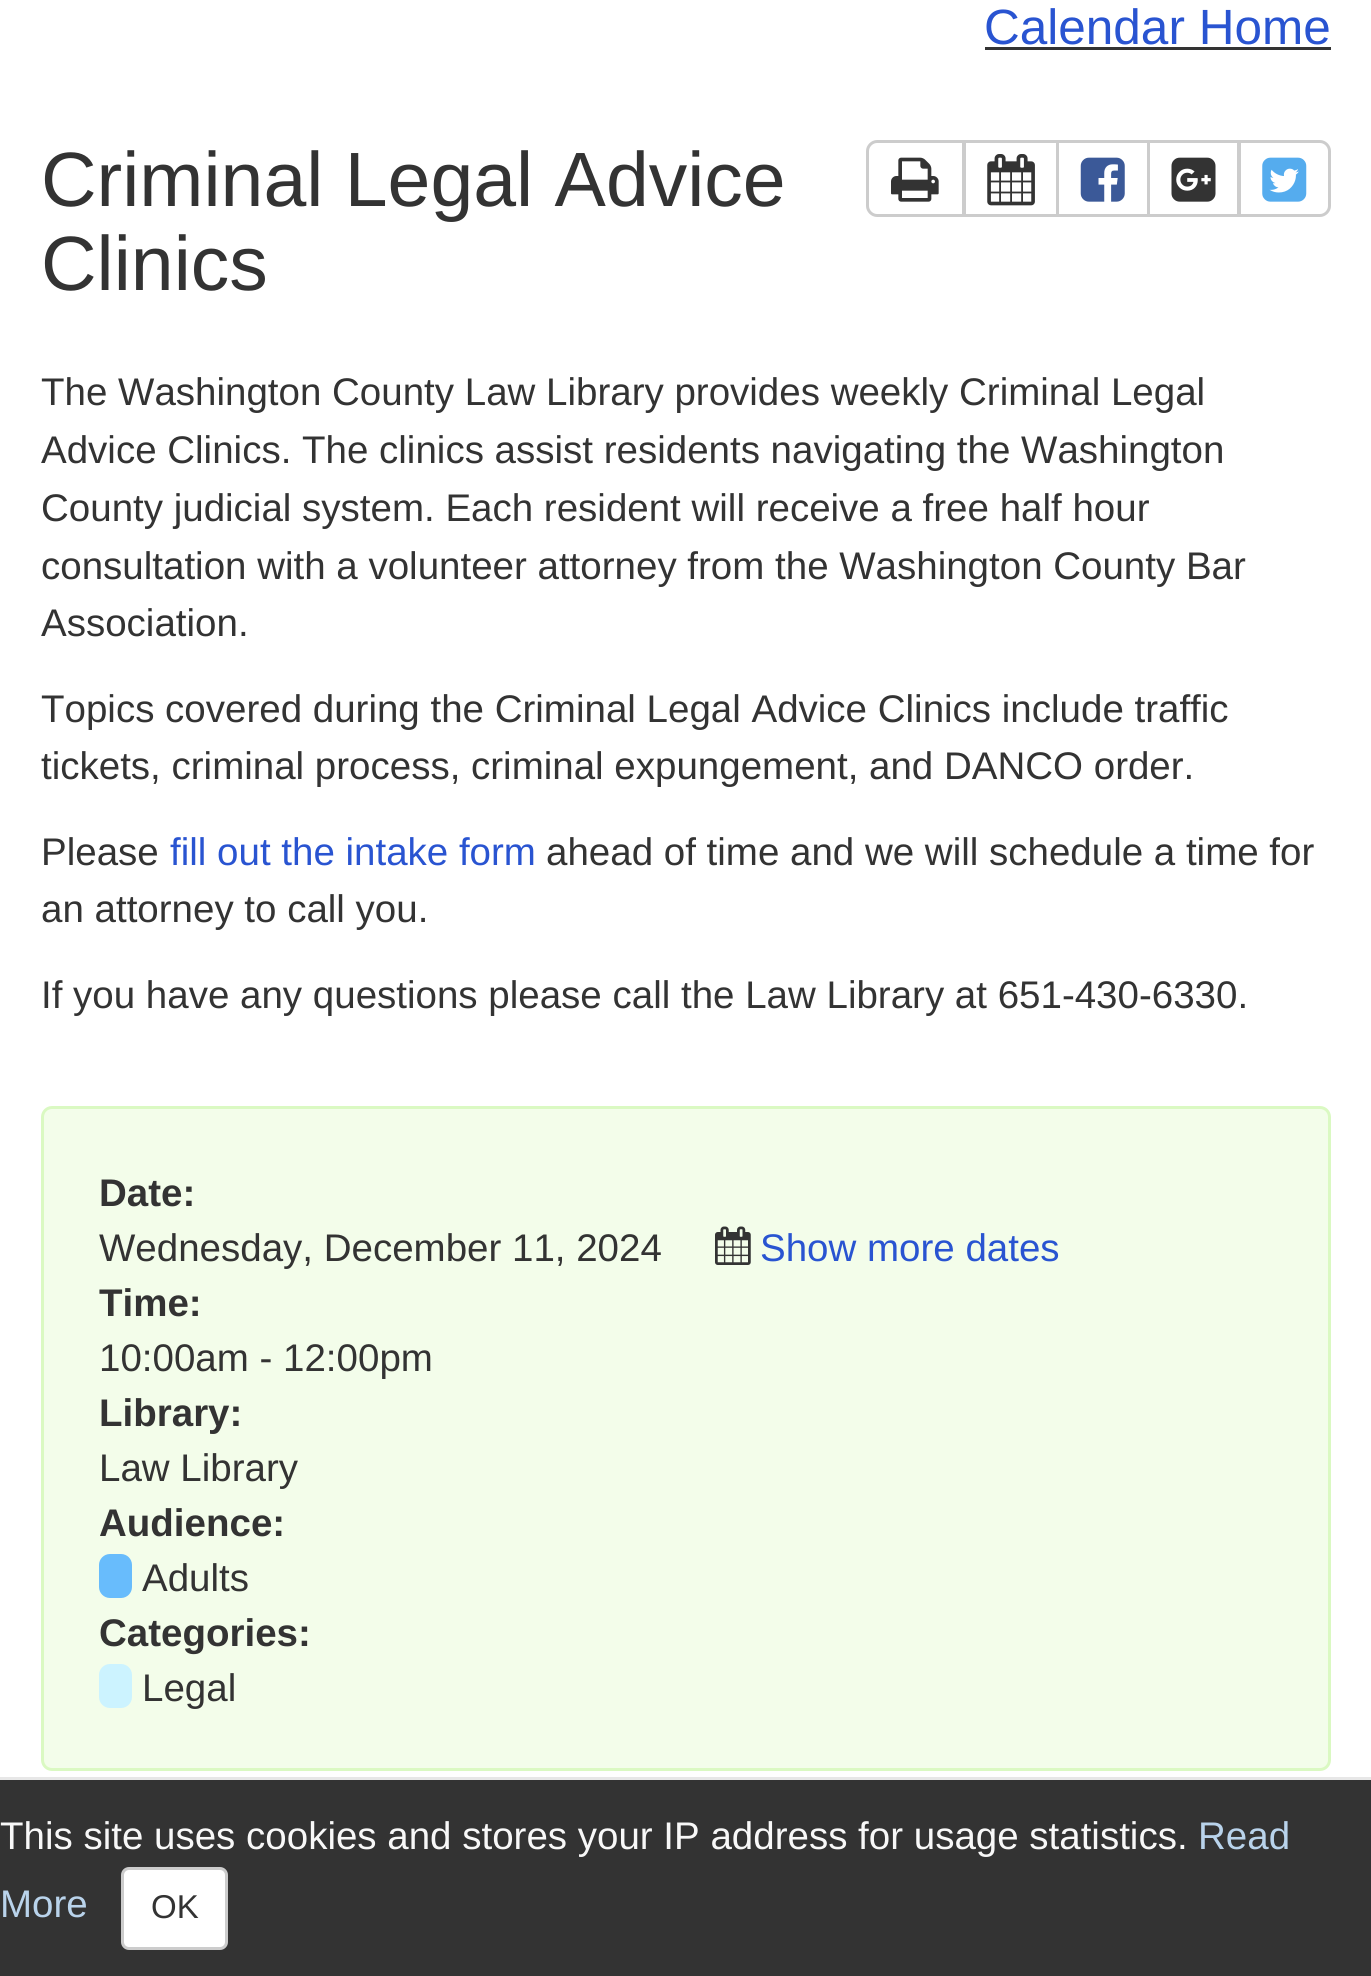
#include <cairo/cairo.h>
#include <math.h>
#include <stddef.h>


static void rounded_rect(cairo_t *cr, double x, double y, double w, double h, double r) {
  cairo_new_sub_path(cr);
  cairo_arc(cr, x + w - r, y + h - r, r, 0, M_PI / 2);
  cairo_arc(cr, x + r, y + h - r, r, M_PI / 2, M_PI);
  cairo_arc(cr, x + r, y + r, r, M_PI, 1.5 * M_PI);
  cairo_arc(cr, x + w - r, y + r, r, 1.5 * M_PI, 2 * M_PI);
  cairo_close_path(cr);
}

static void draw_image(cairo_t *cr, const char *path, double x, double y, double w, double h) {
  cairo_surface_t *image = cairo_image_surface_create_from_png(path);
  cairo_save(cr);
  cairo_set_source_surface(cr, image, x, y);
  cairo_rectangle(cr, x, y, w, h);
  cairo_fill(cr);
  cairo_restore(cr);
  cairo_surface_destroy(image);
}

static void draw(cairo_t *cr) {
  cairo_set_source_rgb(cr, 1, 1, 1);
  cairo_paint(cr);
  cairo_set_source_rgb(cr, 51 / 255.0, 51 / 255.0, 51 / 255.0);
  cairo_rectangle(cr, 985, 47, 346, 3);
  cairo_fill(cr);
  cairo_new_path(cr);
  cairo_move_to(cr, 877, 141.5);
  cairo_line_to(cr, 963.5, 141.5);
  cairo_line_to(cr, 963.5, 215.5);
  cairo_line_to(cr, 877, 215.5);
  cairo_curve_to(cr, 872, 215.5, 867.5, 211, 867.5, 206);
  cairo_line_to(cr, 867.5, 151);
  cairo_curve_to(cr, 867.5, 146, 872, 141.5, 877, 141.5);
  cairo_close_path(cr);
  cairo_set_source_rgb(cr, 204 / 255.0, 204 / 255.0, 204 / 255.0);
  cairo_set_line_width(cr, 3);
  cairo_stroke(cr);
  draw_image(cr, "images/1.png", 891, 157, 48, 45);
  cairo_rectangle(cr, 964.5, 141.5, 93, 74);
  cairo_stroke(cr);
  draw_image(cr, "images/2.png", 987, 154, 48, 52);
  cairo_rectangle(cr, 1057.5, 141.5, 91, 74);
  cairo_stroke(cr);
  draw_image(cr, "images/3.png", 1080, 157, 45, 45);
  cairo_rectangle(cr, 1148.5, 141.5, 90, 74);
  cairo_stroke(cr);
  draw_image(cr, "images/4.png", 1171, 157, 45, 45);
  cairo_set_source_rgb(cr, 1, 1, 1);
  cairo_new_path(cr);
  cairo_move_to(cr, 1239.5, 141.5);
  cairo_line_to(cr, 1320, 141.5);
  cairo_curve_to(cr, 1325, 141.5, 1329.5, 146, 1329.5, 151);
  cairo_line_to(cr, 1329.5, 206);
  cairo_curve_to(cr, 1329.5, 211, 1325, 215.5, 1320, 215.5);
  cairo_line_to(cr, 1239.5, 215.5);
  cairo_close_path(cr);
  cairo_fill_preserve(cr);
  cairo_set_source_rgb(cr, 204 / 255.0, 204 / 255.0, 204 / 255.0);
  cairo_stroke(cr);
  draw_image(cr, "images/5.png", 1262, 157, 45, 45);
  cairo_set_source_rgb(cr, 243 / 255.0, 253 / 255.0, 234 / 255.0);
  rounded_rect(cr, 42.5, 1107.5, 1287, 662, 9.5);
  cairo_fill_preserve(cr);
  cairo_set_source_rgb(cr, 218 / 255.0, 249 / 255.0, 194 / 255.0);
  cairo_stroke(cr);
  draw_image(cr, "images/6.png", 715, 1226, 36, 39);
  cairo_set_source_rgb(cr, 104 / 255.0, 188 / 255.0, 252 / 255.0);
  rounded_rect(cr, 99, 1554, 33, 44, 11);
  cairo_fill(cr);
  cairo_set_source_rgb(cr, 204 / 255.0, 243 / 255.0, 1);
  rounded_rect(cr, 99, 1664, 33, 44, 11);
  cairo_fill(cr);
  cairo_set_source_rgb(cr, 51 / 255.0, 51 / 255.0, 51 / 255.0);
  cairo_rectangle(cr, 0, 1780, 1371, 196);
  cairo_fill(cr);
  cairo_set_source_rgb(cr, 231 / 255.0, 231 / 255.0, 231 / 255.0);
  cairo_rectangle(cr, 0, 1777, 1371, 3);
  cairo_fill(cr);
  cairo_set_source_rgb(cr, 1, 1, 1);
  rounded_rect(cr, 122.5, 1868.5, 104, 80, 6.5);
  cairo_fill_preserve(cr);
  cairo_set_source_rgb(cr, 204 / 255.0, 204 / 255.0, 204 / 255.0);
  cairo_stroke(cr);
  cairo_select_font_face(cr, "Liberation Sans", CAIRO_FONT_SLANT_NORMAL, CAIRO_FONT_WEIGHT_NORMAL);
  cairo_set_font_size(cr, 49.5);
  cairo_set_source_rgb(cr, 41 / 255.0, 84 / 255.0, 209 / 255.0);
  cairo_move_to(cr, 984, 44);
  cairo_show_text(cr, "Calendar Home");
  cairo_set_font_size(cr, 77);
  cairo_set_source_rgb(cr, 51 / 255.0, 51 / 255.0, 51 / 255.0);
  cairo_move_to(cr, 41, 206);
  cairo_show_text(cr, "Criminal Legal Advice");
  cairo_move_to(cr, 41, 290);
  cairo_show_text(cr, "Clinics");
  cairo_set_font_size(cr, 38.5);
  cairo_move_to(cr, 41, 405);
  cairo_show_text(cr, "The Washington County Law Library provides weekly Criminal Legal");
  cairo_move_to(cr, 41, 463);
  cairo_show_text(cr, "Advice Clinics. The clinics assist residents navigating the Washington");
  cairo_move_to(cr, 41, 521);
  cairo_show_text(cr, "County judicial system. Each resident will receive a free half hour");
  cairo_move_to(cr, 41, 579);
  cairo_show_text(cr, "consultation with a volunteer attorney from the Washington County Bar");
  cairo_move_to(cr, 41, 636);
  cairo_show_text(cr, "Association.");
  cairo_move_to(cr, 41, 722);
  cairo_show_text(cr, "Topics covered during the Criminal Legal Advice Clinics include traffic");
  cairo_move_to(cr, 41, 779);
  cairo_show_text(cr, "tickets, criminal process, criminal expungement, and DANCO order.");
  cairo_move_to(cr, 41, 865);
  cairo_show_text(cr, "Please");
  cairo_set_source_rgb(cr, 41 / 255.0, 84 / 255.0, 209 / 255.0);
  cairo_move_to(cr, 170, 865);
  cairo_show_text(cr, "fill out the intake form");
  cairo_set_source_rgb(cr, 51 / 255.0, 51 / 255.0, 51 / 255.0);
  cairo_move_to(cr, 546, 865);
  cairo_show_text(cr, "ahead of time and we will schedule a time for");
  cairo_move_to(cr, 41, 922);
  cairo_show_text(cr, "an attorney to call you.");
  cairo_move_to(cr, 41, 1008);
  cairo_show_text(cr, "If you have any questions please call the Law Library at 651-430-6330.");
  cairo_select_font_face(cr, "Liberation Sans", CAIRO_FONT_SLANT_NORMAL, CAIRO_FONT_WEIGHT_BOLD);
  cairo_move_to(cr, 99, 1206);
  cairo_show_text(cr, "Date:");
  cairo_select_font_face(cr, "Liberation Sans", CAIRO_FONT_SLANT_NORMAL, CAIRO_FONT_WEIGHT_NORMAL);
  cairo_move_to(cr, 99, 1261);
  cairo_show_text(cr, "Wednesday, December 11, 2024");
  cairo_set_source_rgb(cr, 41 / 255.0, 84 / 255.0, 209 / 255.0);
  cairo_move_to(cr, 760, 1261);
  cairo_show_text(cr, "Show more dates");
  cairo_select_font_face(cr, "Liberation Sans", CAIRO_FONT_SLANT_NORMAL, CAIRO_FONT_WEIGHT_BOLD);
  cairo_set_source_rgb(cr, 51 / 255.0, 51 / 255.0, 51 / 255.0);
  cairo_move_to(cr, 99, 1316);
  cairo_show_text(cr, "Time:");
  cairo_select_font_face(cr, "Liberation Sans", CAIRO_FONT_SLANT_NORMAL, CAIRO_FONT_WEIGHT_NORMAL);
  cairo_move_to(cr, 99, 1371);
  cairo_show_text(cr, "10:00am - 12:00pm");
  cairo_select_font_face(cr, "Liberation Sans", CAIRO_FONT_SLANT_NORMAL, CAIRO_FONT_WEIGHT_BOLD);
  cairo_move_to(cr, 99, 1426);
  cairo_show_text(cr, "Library:");
  cairo_select_font_face(cr, "Liberation Sans", CAIRO_FONT_SLANT_NORMAL, CAIRO_FONT_WEIGHT_NORMAL);
  cairo_move_to(cr, 99, 1481);
  cairo_show_text(cr, "Law Library");
  cairo_select_font_face(cr, "Liberation Sans", CAIRO_FONT_SLANT_NORMAL, CAIRO_FONT_WEIGHT_BOLD);
  cairo_move_to(cr, 99, 1536);
  cairo_show_text(cr, "Audience:");
  cairo_select_font_face(cr, "Liberation Sans", CAIRO_FONT_SLANT_NORMAL, CAIRO_FONT_WEIGHT_NORMAL);
  cairo_move_to(cr, 142, 1591);
  cairo_show_text(cr, "Adults");
  cairo_select_font_face(cr, "Liberation Sans", CAIRO_FONT_SLANT_NORMAL, CAIRO_FONT_WEIGHT_BOLD);
  cairo_move_to(cr, 99, 1646);
  cairo_show_text(cr, "Categories:");
  cairo_select_font_face(cr, "Liberation Sans", CAIRO_FONT_SLANT_NORMAL, CAIRO_FONT_WEIGHT_NORMAL);
  cairo_move_to(cr, 142, 1701);
  cairo_show_text(cr, "Legal");
  cairo_set_source_rgb(cr, 248 / 255.0, 248 / 255.0, 248 / 255.0);
  cairo_move_to(cr, 0, 1849);
  cairo_show_text(cr, "This site uses cookies and stores your IP address for usage statistics.");
  cairo_set_source_rgb(cr, 185 / 255.0, 211 / 255.0, 235 / 255.0);
  cairo_move_to(cr, 1198, 1849);
  cairo_show_text(cr, "Read");
  cairo_move_to(cr, 0, 1917);
  cairo_show_text(cr, "More");
  cairo_set_font_size(cr, 33);
  cairo_set_source_rgb(cr, 51 / 255.0, 51 / 255.0, 51 / 255.0);
  cairo_move_to(cr, 151, 1918);
  cairo_show_text(cr, "OK");
}

int main(void) {
  cairo_surface_t *surface = cairo_image_surface_create(CAIRO_FORMAT_RGB24, 1371, 1976);
  cairo_t *cr = cairo_create(surface);
  cairo_font_options_t *options = cairo_font_options_create();
  cairo_font_options_set_hint_metrics(options, CAIRO_HINT_METRICS_OFF);
  cairo_font_options_set_hint_style(options, CAIRO_HINT_STYLE_NONE);
  cairo_set_font_options(cr, options);
  cairo_set_miter_limit(cr, 4);
  draw(cr);
  cairo_surface_write_to_png(surface, "out.png");
  cairo_font_options_destroy(options);
  cairo_destroy(cr);
  cairo_surface_destroy(surface);
  return 0;
}
